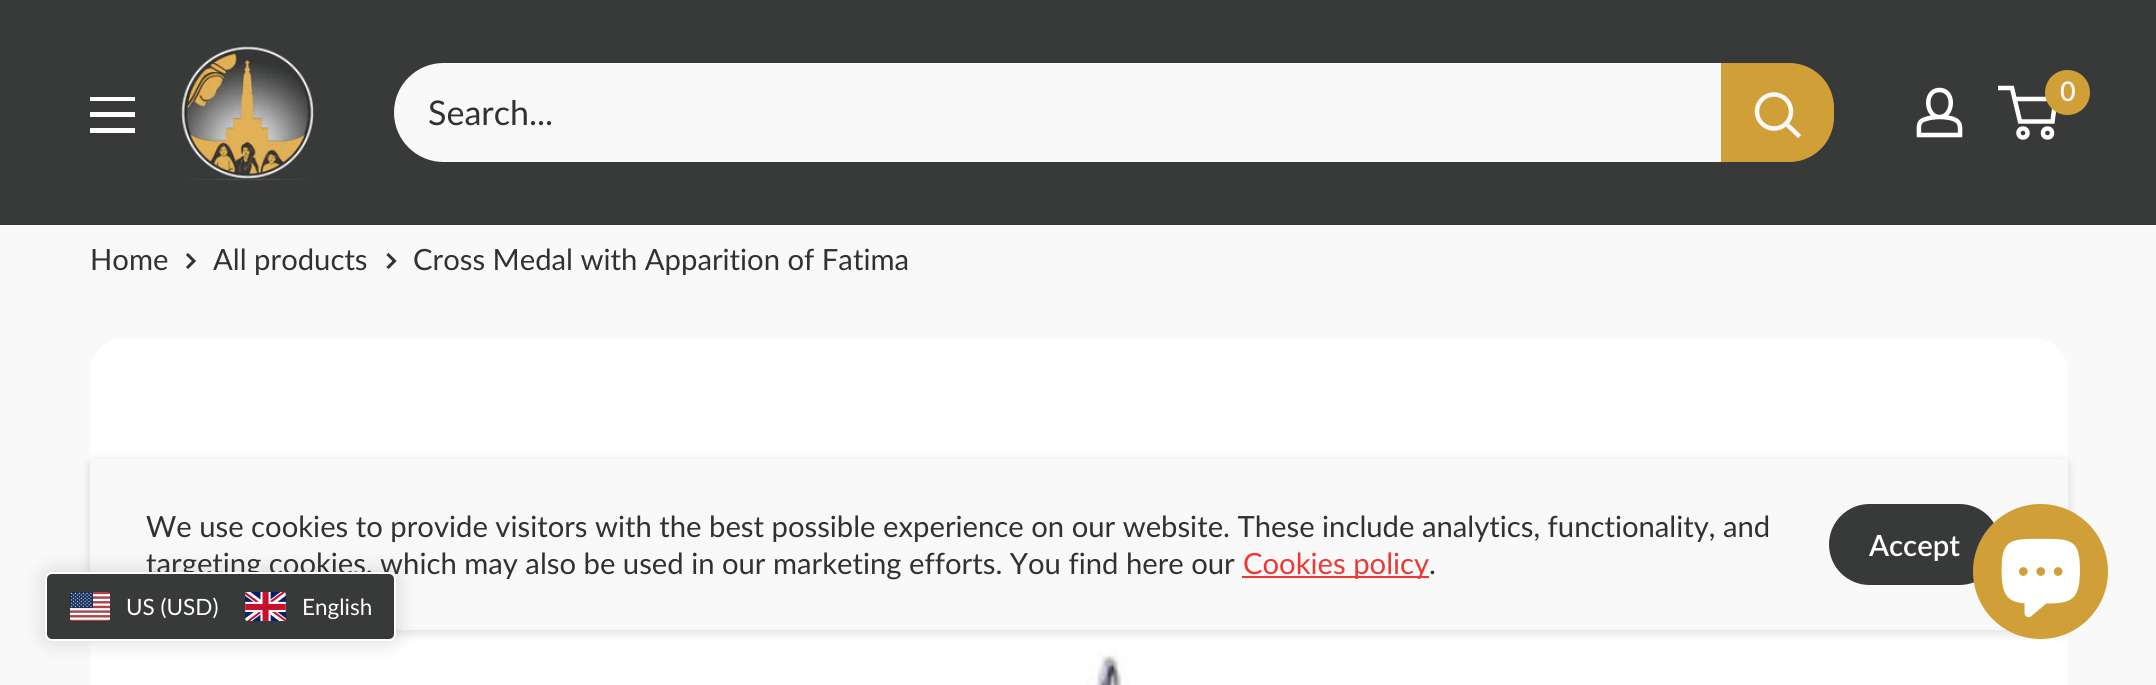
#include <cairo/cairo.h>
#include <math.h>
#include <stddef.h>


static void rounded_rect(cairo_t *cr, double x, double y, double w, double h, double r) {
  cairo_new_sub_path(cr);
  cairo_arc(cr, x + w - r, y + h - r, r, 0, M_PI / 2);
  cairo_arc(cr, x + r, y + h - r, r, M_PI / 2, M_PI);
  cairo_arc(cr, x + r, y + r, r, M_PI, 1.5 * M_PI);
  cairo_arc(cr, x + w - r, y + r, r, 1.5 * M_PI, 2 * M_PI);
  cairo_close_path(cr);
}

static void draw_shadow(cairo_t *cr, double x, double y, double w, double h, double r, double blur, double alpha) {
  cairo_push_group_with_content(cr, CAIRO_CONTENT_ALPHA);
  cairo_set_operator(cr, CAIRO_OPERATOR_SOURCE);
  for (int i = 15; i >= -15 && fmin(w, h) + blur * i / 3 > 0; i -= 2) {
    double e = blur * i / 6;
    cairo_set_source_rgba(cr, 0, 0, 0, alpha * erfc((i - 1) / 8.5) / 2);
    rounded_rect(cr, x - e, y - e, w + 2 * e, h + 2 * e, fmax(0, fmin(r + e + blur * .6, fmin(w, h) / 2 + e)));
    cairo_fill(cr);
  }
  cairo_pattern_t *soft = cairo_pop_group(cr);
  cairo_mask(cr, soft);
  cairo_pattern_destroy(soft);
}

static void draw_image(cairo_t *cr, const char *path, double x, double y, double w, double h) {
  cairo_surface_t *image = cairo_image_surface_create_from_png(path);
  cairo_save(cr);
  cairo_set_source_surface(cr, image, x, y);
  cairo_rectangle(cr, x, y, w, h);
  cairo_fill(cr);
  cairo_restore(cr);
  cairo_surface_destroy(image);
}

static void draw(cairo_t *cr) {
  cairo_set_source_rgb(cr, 249 / 255.0, 249 / 255.0, 249 / 255.0);
  cairo_paint(cr);
  cairo_set_source_rgb(cr, 56 / 255.0, 57 / 255.0, 57 / 255.0);
  cairo_rectangle(cr, 0, 0, 2156, 225);
  cairo_fill(cr);
  draw_image(cr, "images/1.png", 181, 46, 133, 134);
  cairo_new_path(cr);
  cairo_move_to(cr, 1939.5, 117);
  cairo_curve_to(cr, 1943.5, 117, 1948, 117.5, 1952, 118.5);
  cairo_curve_to(cr, 1961.5, 121.5, 1960, 126.5, 1960, 135);
  cairo_line_to(cr, 1919, 135);
  cairo_curve_to(cr, 1919, 126, 1917, 121, 1927.5, 118.5);
  cairo_curve_to(cr, 1931.5, 117.5, 1935.5, 117, 1939.5, 117);
  cairo_close_path(cr);
  cairo_move_to(cr, 1939.5, 117);
  cairo_curve_to(cr, 1925.5, 117, 1923.5, 90, 1939.5, 90);
  cairo_curve_to(cr, 1955.5, 90, 1953.5, 117, 1939.5, 117);
  cairo_close_path(cr);
  cairo_set_source_rgb(cr, 1, 1, 1);
  cairo_set_line_width(cr, 4.5);
  cairo_stroke(cr);
  cairo_arc(cr, 2023, 133, 4.5, 0, 2 * M_PI);
  cairo_stroke(cr);
  cairo_arc(cr, 2047.5, 133, 4.5, 0, 2 * M_PI);
  cairo_stroke(cr);
  cairo_new_path(cr);
  cairo_move_to(cr, 2014.5, 99);
  cairo_line_to(cr, 2055.5, 99);
  cairo_line_to(cr, 2052.5, 121.5);
  cairo_line_to(cr, 2020, 121.5);
  cairo_line_to(cr, 2012, 88);
  cairo_line_to(cr, 1998, 88);
  cairo_stroke(cr);
  cairo_set_source_rgb(cr, 209 / 255.0, 159 / 255.0, 56 / 255.0);
  cairo_arc(cr, 2067.5, 92.5, 22.5, 0, 2 * M_PI);
  cairo_fill(cr);
  cairo_set_source_rgb(cr, 1, 1, 1);
  cairo_set_fill_rule(cr, CAIRO_FILL_RULE_EVEN_ODD);
  cairo_new_path(cr);
  cairo_move_to(cr, 90, 128);
  cairo_line_to(cr, 135, 128);
  cairo_line_to(cr, 135, 133);
  cairo_line_to(cr, 90, 133);
  cairo_close_path(cr);
  cairo_move_to(cr, 90, 97);
  cairo_line_to(cr, 135, 97);
  cairo_line_to(cr, 135, 101);
  cairo_line_to(cr, 90, 101);
  cairo_close_path(cr);
  cairo_move_to(cr, 90, 112);
  cairo_line_to(cr, 135, 112);
  cairo_line_to(cr, 135, 117);
  cairo_line_to(cr, 90, 117);
  cairo_close_path(cr);
  cairo_fill(cr);
  cairo_set_source_rgb(cr, 249 / 255.0, 249 / 255.0, 249 / 255.0);
  rounded_rect(cr, 394, 63, 1440, 99, 49.5);
  cairo_fill(cr);
  cairo_set_source_rgb(cr, 209 / 255.0, 159 / 255.0, 56 / 255.0);
  cairo_new_path(cr);
  cairo_move_to(cr, 1721, 63);
  cairo_line_to(cr, 1789, 63);
  cairo_curve_to(cr, 1814, 63, 1834, 83, 1834, 108);
  cairo_line_to(cr, 1834, 117);
  cairo_curve_to(cr, 1834, 142, 1814, 162, 1789, 162);
  cairo_line_to(cr, 1721, 162);
  cairo_close_path(cr);
  cairo_fill(cr);
  cairo_new_path(cr);
  cairo_move_to(cr, 1798, 135);
  cairo_line_to(cr, 1786.5, 124);
  cairo_set_source_rgb(cr, 249 / 255.0, 249 / 255.0, 249 / 255.0);
  cairo_set_line_cap(cr, CAIRO_LINE_CAP_SQUARE);
  cairo_stroke(cr);
  cairo_arc(cr, 1774, 111.5, 17, 0, 2 * M_PI);
  cairo_set_line_cap(cr, CAIRO_LINE_CAP_BUTT);
  cairo_stroke(cr);
  cairo_new_path(cr);
  cairo_move_to(cr, 188, 255);
  cairo_line_to(cr, 194, 261);
  cairo_line_to(cr, 188, 267);
  cairo_set_source_rgb(cr, 49 / 255.0, 49 / 255.0, 49 / 255.0);
  cairo_set_line_width(cr, 3);
  cairo_set_line_cap(cr, CAIRO_LINE_CAP_SQUARE);
  cairo_stroke(cr);
  cairo_new_path(cr);
  cairo_move_to(cr, 388.5, 255);
  cairo_line_to(cr, 394.5, 261);
  cairo_line_to(cr, 388.5, 267);
  cairo_stroke(cr);
  cairo_set_source_rgb(cr, 1, 1, 1);
  rounded_rect(cr, 90, 338, 1978, 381, 34);
  cairo_fill(cr);
  draw_image(cr, "images/2.png", 1085, 651, 45, 34);
  cairo_set_source_rgb(cr, 0, 0, 0);
  draw_shadow(cr, 88, 459, 1982, 176, 9, 4.5, 0.1);
  cairo_set_source_rgb(cr, 249 / 255.0, 249 / 255.0, 249 / 255.0);
  rounded_rect(cr, 90, 459, 1978, 171, 7);
  cairo_fill(cr);
  cairo_set_source_rgb(cr, 237 / 255.0, 56 / 255.0, 51 / 255.0);
  cairo_rectangle(cr, 1242, 576, 187, 2);
  cairo_fill(cr);
  cairo_set_source_rgb(cr, 56 / 255.0, 57 / 255.0, 57 / 255.0);
  rounded_rect(cr, 1829, 504, 171, 81, 40.5);
  cairo_fill(cr);
  cairo_set_source_rgb(cr, 209 / 255.0, 159 / 255.0, 56 / 255.0);
  cairo_arc(cr, 2040.5, 571.5, 67.5, 0, 2 * M_PI);
  cairo_fill(cr);
  draw_image(cr, "images/3.png", 2001, 538, 79, 80);
  cairo_set_source_rgb(cr, 0, 0, 0);
  draw_shadow(cr, 45, 572, 351, 69, 7, 11, 0.15);
  cairo_select_font_face(cr, "Lato SemiBold", CAIRO_FONT_SLANT_NORMAL, CAIRO_FONT_WEIGHT_NORMAL);
  cairo_set_font_size(cr, 27);
  cairo_set_source_rgb(cr, 249 / 255.0, 249 / 255.0, 249 / 255.0);
  cairo_move_to(cr, 2060, 101);
  cairo_show_text(cr, "0");
  cairo_select_font_face(cr, "Lato", CAIRO_FONT_SLANT_NORMAL, CAIRO_FONT_WEIGHT_NORMAL);
  cairo_set_font_size(cr, 34);
  cairo_set_source_rgb(cr, 49 / 255.0, 49 / 255.0, 49 / 255.0);
  cairo_move_to(cr, 428, 125);
  cairo_show_text(cr, "Search...");
  cairo_set_font_size(cr, 29.25);
  cairo_move_to(cr, 90, 270);
  cairo_show_text(cr, "Home");
  cairo_move_to(cr, 213, 270);
  cairo_show_text(cr, "All products");
  cairo_move_to(cr, 413, 270);
  cairo_show_text(cr, "Cross Medal with Apparition of Fatima");
  cairo_move_to(cr, 146, 537);
  cairo_show_text(cr, "We use cookies to provide visitors with the best possible experience on our website. These include analytics, functionality, and");
  cairo_move_to(cr, 146, 574);
  cairo_show_text(cr, "targeting cookies, which may also be used in our marketing efforts. You find here our");
  cairo_set_source_rgb(cr, 237 / 255.0, 56 / 255.0, 51 / 255.0);
  cairo_move_to(cr, 1243, 574);
  cairo_show_text(cr, "Cookies policy");
  cairo_set_source_rgb(cr, 49 / 255.0, 49 / 255.0, 49 / 255.0);
  cairo_move_to(cr, 1429, 574);
  cairo_show_text(cr, ".");
  cairo_select_font_face(cr, "Lato SemiBold", CAIRO_FONT_SLANT_NORMAL, CAIRO_FONT_WEIGHT_NORMAL);
  cairo_set_source_rgb(cr, 1, 1, 1);
  cairo_move_to(cr, 1869, 556);
  cairo_show_text(cr, "Accept");
  cairo_set_source_rgb(cr, 56 / 255.0, 57 / 255.0, 57 / 255.0);
  rounded_rect(cr, 46, 573, 349, 67, 6);
  cairo_fill_preserve(cr);
  cairo_set_source_rgb(cr, 1, 1, 1);
  cairo_set_line_width(cr, 2);
  cairo_set_line_cap(cr, CAIRO_LINE_CAP_BUTT);
  cairo_stroke(cr);
  draw_image(cr, "images/4.png", 70, 592, 40, 29);
  cairo_select_font_face(cr, "Lato", CAIRO_FONT_SLANT_NORMAL, CAIRO_FONT_WEIGHT_NORMAL);
  cairo_set_font_size(cr, 22.5);
  cairo_move_to(cr, 126, 615);
  cairo_show_text(cr, "US (USD)");
  draw_image(cr, "images/5.png", 245, 592, 41, 29);
  cairo_move_to(cr, 302, 615);
  cairo_show_text(cr, "English");
}

int main(void) {
  cairo_surface_t *surface = cairo_image_surface_create(CAIRO_FORMAT_RGB24, 2156, 685);
  cairo_t *cr = cairo_create(surface);
  cairo_font_options_t *options = cairo_font_options_create();
  cairo_font_options_set_hint_metrics(options, CAIRO_HINT_METRICS_OFF);
  cairo_font_options_set_hint_style(options, CAIRO_HINT_STYLE_NONE);
  cairo_set_font_options(cr, options);
  cairo_set_miter_limit(cr, 4);
  draw(cr);
  cairo_surface_write_to_png(surface, "out.png");
  cairo_font_options_destroy(options);
  cairo_destroy(cr);
  cairo_surface_destroy(surface);
  return 0;
}
